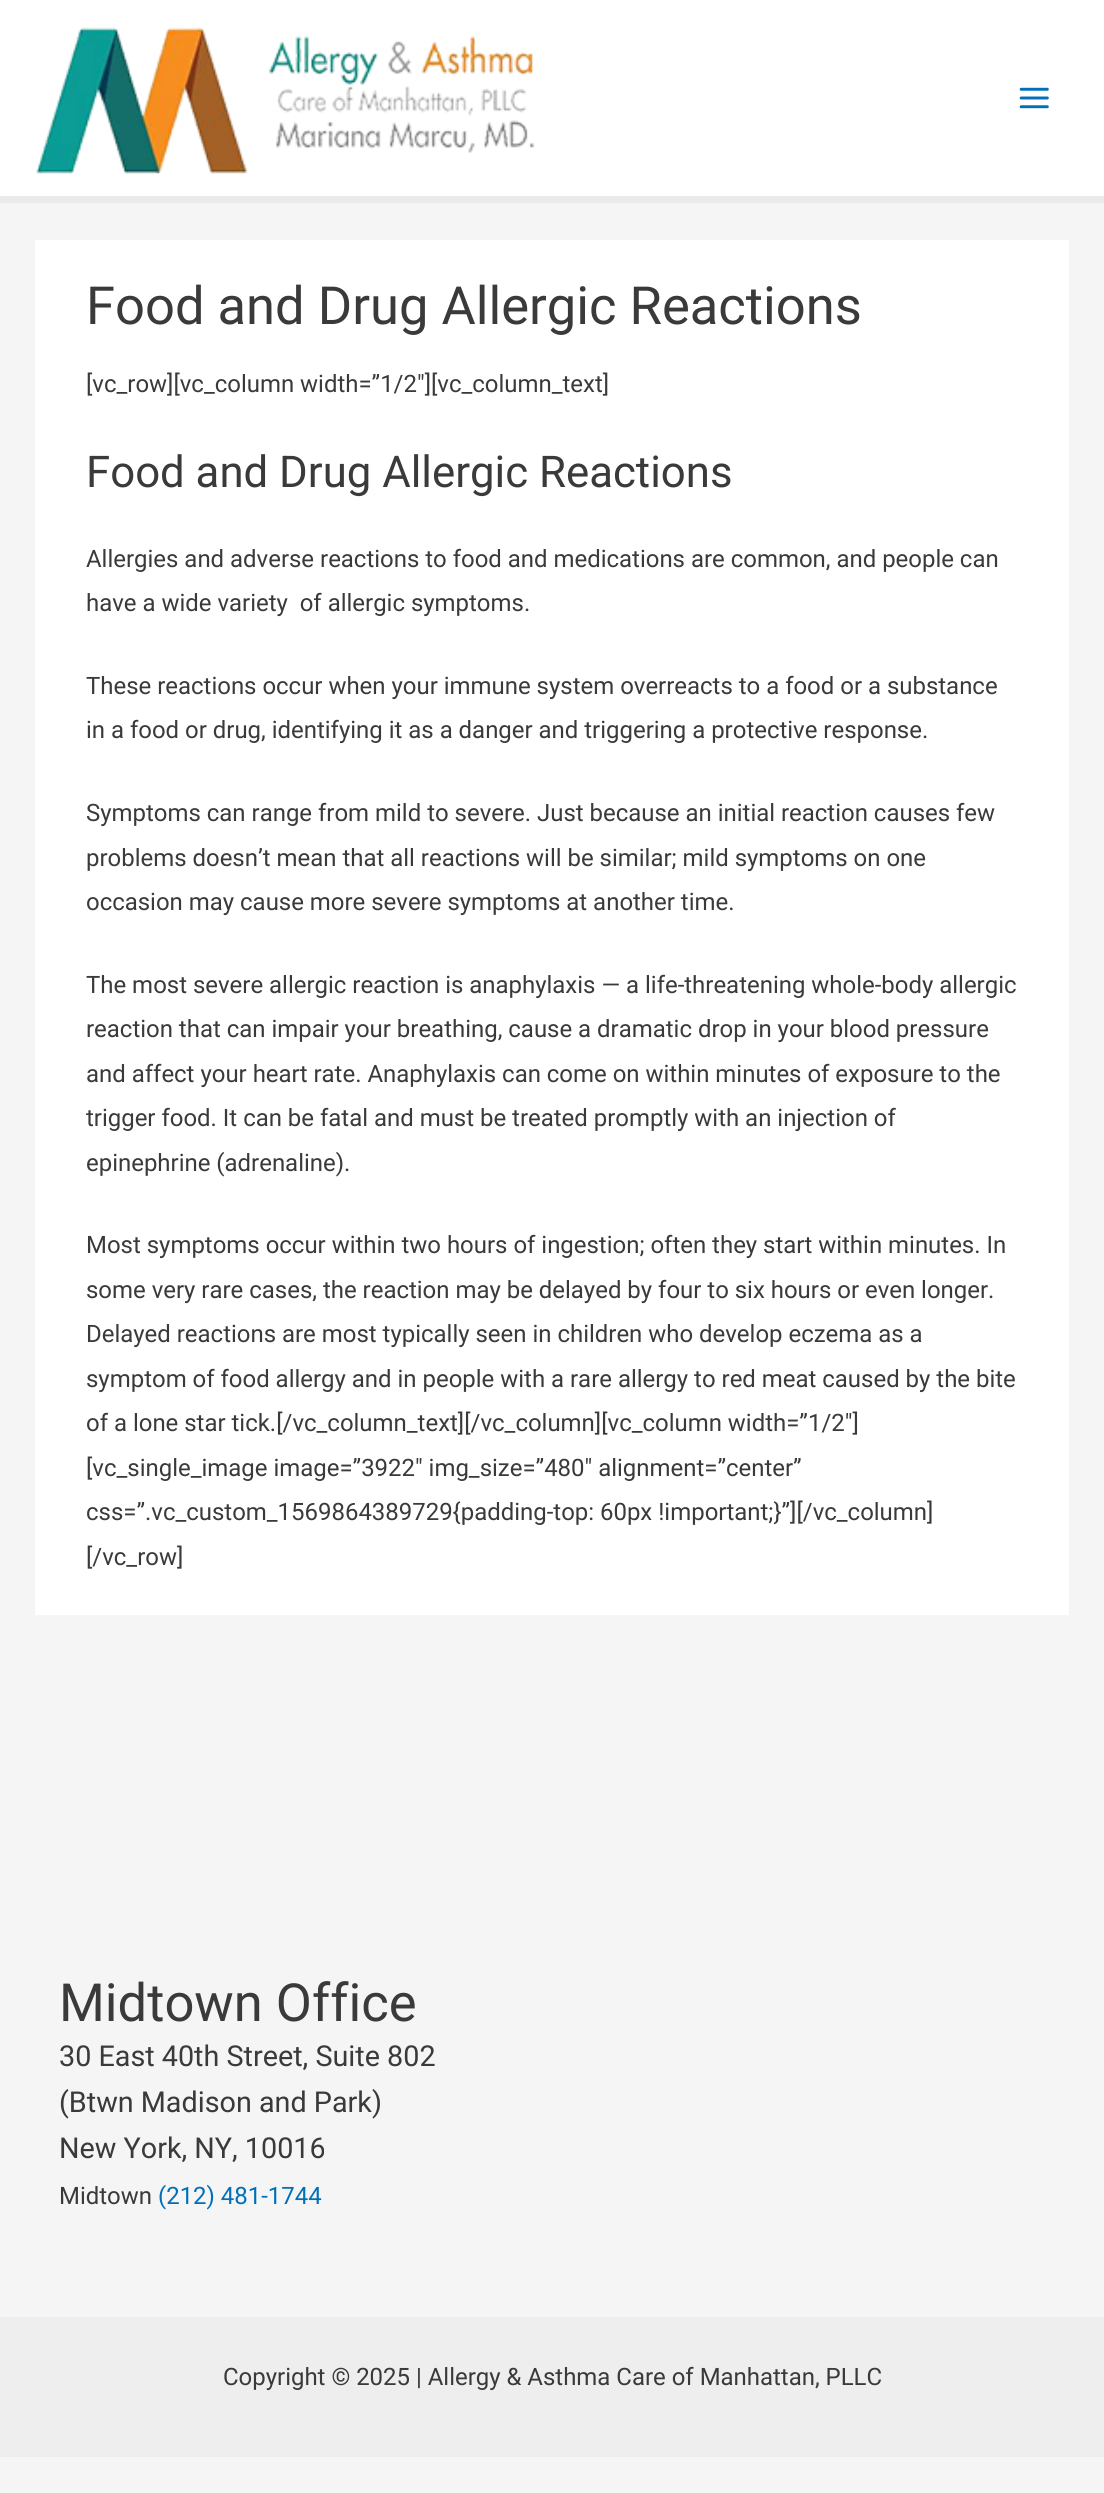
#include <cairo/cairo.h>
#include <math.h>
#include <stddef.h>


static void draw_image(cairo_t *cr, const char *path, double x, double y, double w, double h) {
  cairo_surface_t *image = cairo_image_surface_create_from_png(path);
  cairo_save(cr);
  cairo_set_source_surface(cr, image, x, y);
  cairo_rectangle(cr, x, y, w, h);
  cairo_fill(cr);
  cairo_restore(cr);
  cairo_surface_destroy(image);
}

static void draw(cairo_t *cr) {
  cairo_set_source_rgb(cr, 245 / 255.0, 245 / 255.0, 245 / 255.0);
  cairo_paint(cr);
  cairo_set_source_rgb(cr, 1, 1, 1);
  cairo_rectangle(cr, 0, 0, 1104, 196);
  cairo_fill(cr);
  cairo_set_source_rgb(cr, 234 / 255.0, 234 / 255.0, 234 / 255.0);
  cairo_rectangle(cr, 0, 196, 1104, 7);
  cairo_fill(cr);
  draw_image(cr, "images/1.png", 36, 25, 499, 149);
  draw_image(cr, "images/2.png", 1019, 87, 30, 22);
  cairo_set_source_rgb(cr, 1, 1, 1);
  cairo_rectangle(cr, 35, 240, 1034, 1375);
  cairo_fill(cr);
  cairo_set_source_rgb(cr, 238 / 255.0, 238 / 255.0, 238 / 255.0);
  cairo_rectangle(cr, 0, 2317, 1104, 140);
  cairo_fill(cr);
  cairo_select_font_face(cr, "Roboto", CAIRO_FONT_SLANT_NORMAL, CAIRO_FONT_WEIGHT_NORMAL);
  cairo_set_font_size(cr, 52.5);
  cairo_set_source_rgb(cr, 58 / 255.0, 58 / 255.0, 58 / 255.0);
  cairo_move_to(cr, 86, 324);
  cairo_show_text(cr, "Food and Drug Allergic Reactions");
  cairo_set_font_size(cr, 23.95);
  cairo_move_to(cr, 86, 392);
  cairo_show_text(cr, "[vc_row][vc_column width=”1/2″][vc_column_text]");
  cairo_set_font_size(cr, 43.75);
  cairo_move_to(cr, 86, 487);
  cairo_show_text(cr, "Food and Drug Allergic Reactions");
  cairo_set_font_size(cr, 23.95);
  cairo_move_to(cr, 86, 567);
  cairo_show_text(cr, "Allergies and adverse reactions to food and medications are common, and people can");
  cairo_move_to(cr, 86, 611);
  cairo_show_text(cr, "have a wide variety  of allergic symptoms.");
  cairo_move_to(cr, 86, 694);
  cairo_show_text(cr, "These reactions occur when your immune system overreacts to a food or a substance");
  cairo_move_to(cr, 86, 738);
  cairo_show_text(cr, "in a food or drug, identifying it as a danger and triggering a protective response.");
  cairo_move_to(cr, 86, 821);
  cairo_show_text(cr, "Symptoms can range from mild to severe. Just because an initial reaction causes few");
  cairo_move_to(cr, 86, 866);
  cairo_show_text(cr, "problems doesn’t mean that all reactions will be similar; mild symptoms on one");
  cairo_move_to(cr, 86, 910);
  cairo_show_text(cr, "occasion may cause more severe symptoms at another time.");
  cairo_move_to(cr, 86, 993);
  cairo_show_text(cr, "The most severe allergic reaction is anaphylaxis — a life-threatening whole-body allergic");
  cairo_move_to(cr, 86, 1037);
  cairo_show_text(cr, "reaction that can impair your breathing, cause a dramatic drop in your blood pressure");
  cairo_move_to(cr, 86, 1082);
  cairo_show_text(cr, "and affect your heart rate. Anaphylaxis can come on within minutes of exposure to the");
  cairo_move_to(cr, 86, 1126);
  cairo_show_text(cr, "trigger food. It can be fatal and must be treated promptly with an injection of");
  cairo_move_to(cr, 86, 1171);
  cairo_show_text(cr, "epinephrine (adrenaline).");
  cairo_move_to(cr, 86, 1253);
  cairo_show_text(cr, "Most symptoms occur within two hours of ingestion; often they start within minutes. In");
  cairo_move_to(cr, 86, 1298);
  cairo_show_text(cr, "some very rare cases, the reaction may be delayed by four to six hours or even longer.");
  cairo_move_to(cr, 86, 1342);
  cairo_show_text(cr, "Delayed reactions are most typically seen in children who develop eczema as a");
  cairo_move_to(cr, 86, 1387);
  cairo_show_text(cr, "symptom of food allergy and in people with a rare allergy to red meat caused by the bite");
  cairo_move_to(cr, 86, 1431);
  cairo_show_text(cr, "of a lone star tick.[/vc_column_text][/vc_column][vc_column width=”1/2″]");
  cairo_move_to(cr, 86, 1476);
  cairo_show_text(cr, "[vc_single_image image=”3922″ img_size=”480″ alignment=”center”");
  cairo_move_to(cr, 86, 1520);
  cairo_show_text(cr, "css=”.vc_custom_1569864389729{padding-top: 60px !important;}”][/vc_column]");
  cairo_move_to(cr, 86, 1565);
  cairo_show_text(cr, "[/vc_row]");
  cairo_set_font_size(cr, 52.5);
  cairo_move_to(cr, 59, 2021);
  cairo_show_text(cr, "Midtown Office");
  cairo_set_font_size(cr, 28.75);
  cairo_move_to(cr, 59, 2066);
  cairo_show_text(cr, "30 East 40th Street, Suite 802");
  cairo_move_to(cr, 59, 2112);
  cairo_show_text(cr, "(Btwn Madison and Park)");
  cairo_move_to(cr, 59, 2158);
  cairo_show_text(cr, "New York, NY, 10016");
  cairo_set_font_size(cr, 23.95);
  cairo_move_to(cr, 59, 2204);
  cairo_show_text(cr, "Midtown");
  cairo_set_source_rgb(cr, 1 / 255.0, 112 / 255.0, 185 / 255.0);
  cairo_move_to(cr, 158, 2204);
  cairo_show_text(cr, "(212) 481-1744");
  cairo_set_source_rgb(cr, 58 / 255.0, 58 / 255.0, 58 / 255.0);
  cairo_move_to(cr, 223, 2385);
  cairo_show_text(cr, "Copyright © 2025 | Allergy & Asthma Care of Manhattan, PLLC");
}

int main(void) {
  cairo_surface_t *surface = cairo_image_surface_create(CAIRO_FORMAT_RGB24, 1104, 2493);
  cairo_t *cr = cairo_create(surface);
  cairo_font_options_t *options = cairo_font_options_create();
  cairo_font_options_set_hint_metrics(options, CAIRO_HINT_METRICS_OFF);
  cairo_font_options_set_hint_style(options, CAIRO_HINT_STYLE_NONE);
  cairo_set_font_options(cr, options);
  cairo_set_miter_limit(cr, 4);
  draw(cr);
  cairo_surface_write_to_png(surface, "out.png");
  cairo_font_options_destroy(options);
  cairo_destroy(cr);
  cairo_surface_destroy(surface);
  return 0;
}
